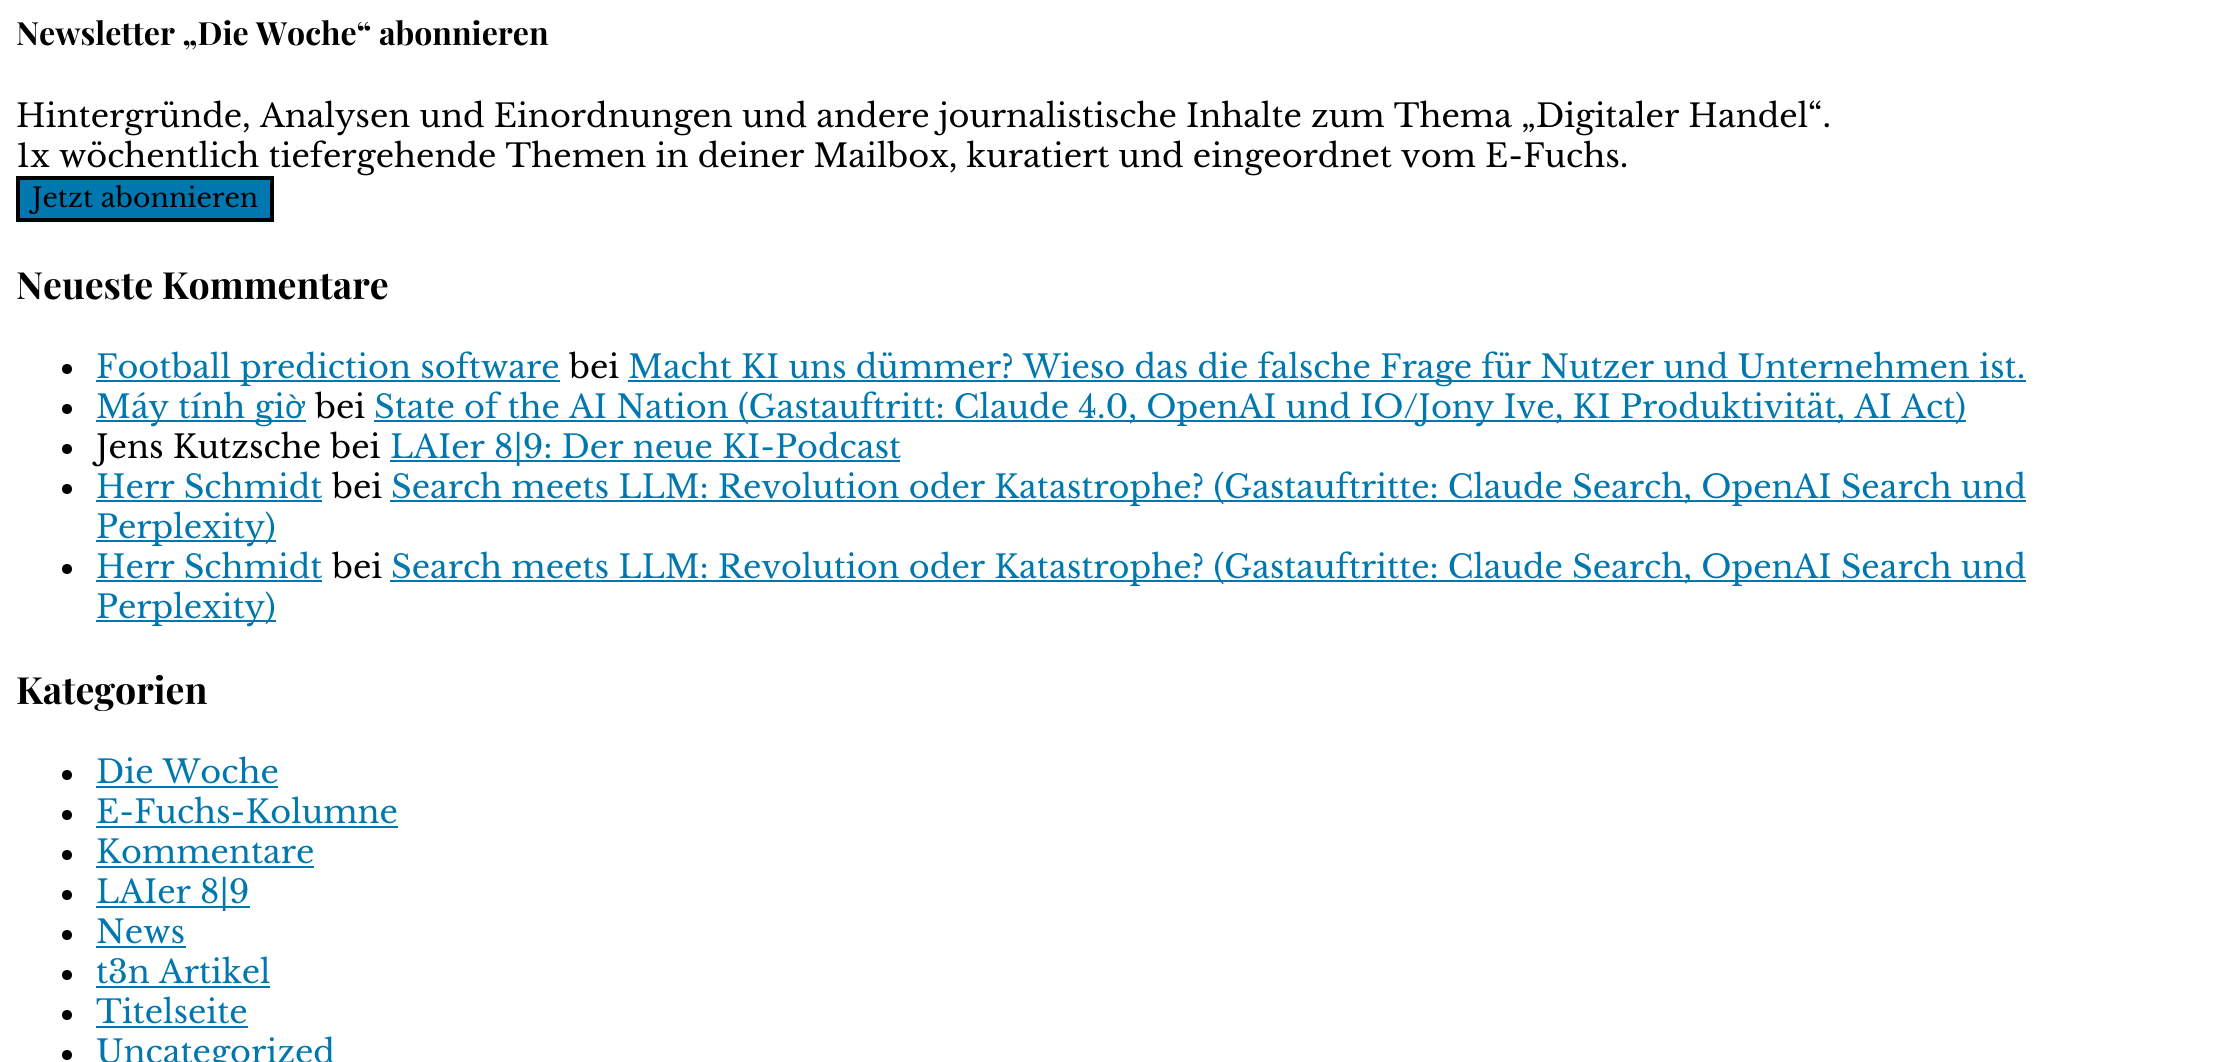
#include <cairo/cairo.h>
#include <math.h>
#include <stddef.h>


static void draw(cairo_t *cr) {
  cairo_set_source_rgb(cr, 1, 1, 1);
  cairo_paint(cr);
  cairo_set_source_rgb(cr, 0, 120 / 255.0, 175 / 255.0);
  cairo_rectangle(cr, 18, 178, 254, 42);
  cairo_fill_preserve(cr);
  cairo_set_source_rgb(cr, 0, 0, 0);
  cairo_set_line_width(cr, 4);
  cairo_stroke(cr);
  cairo_arc(cr, 67, 369, 5, 0, 2 * M_PI);
  cairo_fill(cr);
  cairo_set_source_rgb(cr, 0, 120 / 255.0, 175 / 255.0);
  cairo_rectangle(cr, 96, 380, 464, 2);
  cairo_fill(cr);
  cairo_rectangle(cr, 628, 380, 1398, 2);
  cairo_fill(cr);
  cairo_set_source_rgb(cr, 0, 0, 0);
  cairo_arc(cr, 67, 409, 5, 0, 2 * M_PI);
  cairo_fill(cr);
  cairo_set_source_rgb(cr, 0, 120 / 255.0, 175 / 255.0);
  cairo_rectangle(cr, 96, 420, 210, 2);
  cairo_fill(cr);
  cairo_rectangle(cr, 374, 420, 1592, 2);
  cairo_fill(cr);
  cairo_set_source_rgb(cr, 0, 0, 0);
  cairo_arc(cr, 67, 449, 5, 0, 2 * M_PI);
  cairo_fill(cr);
  cairo_set_source_rgb(cr, 0, 120 / 255.0, 175 / 255.0);
  cairo_rectangle(cr, 390, 460, 510, 2);
  cairo_fill(cr);
  cairo_set_source_rgb(cr, 0, 0, 0);
  cairo_arc(cr, 67, 489, 5, 0, 2 * M_PI);
  cairo_fill(cr);
  cairo_set_source_rgb(cr, 0, 120 / 255.0, 175 / 255.0);
  cairo_rectangle(cr, 96, 500, 226, 2);
  cairo_fill(cr);
  cairo_rectangle(cr, 390, 500, 1636, 2);
  cairo_fill(cr);
  cairo_rectangle(cr, 96, 540, 180, 2);
  cairo_fill(cr);
  cairo_set_source_rgb(cr, 0, 0, 0);
  cairo_arc(cr, 67, 569, 5, 0, 2 * M_PI);
  cairo_fill(cr);
  cairo_set_source_rgb(cr, 0, 120 / 255.0, 175 / 255.0);
  cairo_rectangle(cr, 96, 580, 226, 2);
  cairo_fill(cr);
  cairo_rectangle(cr, 390, 580, 1636, 2);
  cairo_fill(cr);
  cairo_rectangle(cr, 96, 620, 180, 2);
  cairo_fill(cr);
  cairo_set_source_rgb(cr, 0, 0, 0);
  cairo_arc(cr, 67, 775, 5, 0, 2 * M_PI);
  cairo_fill(cr);
  cairo_set_source_rgb(cr, 0, 120 / 255.0, 175 / 255.0);
  cairo_rectangle(cr, 96, 786, 182, 2);
  cairo_fill(cr);
  cairo_set_source_rgb(cr, 0, 0, 0);
  cairo_arc(cr, 67, 815, 5, 0, 2 * M_PI);
  cairo_fill(cr);
  cairo_set_source_rgb(cr, 0, 120 / 255.0, 175 / 255.0);
  cairo_rectangle(cr, 96, 826, 302, 2);
  cairo_fill(cr);
  cairo_set_source_rgb(cr, 0, 0, 0);
  cairo_arc(cr, 67, 855, 5, 0, 2 * M_PI);
  cairo_fill(cr);
  cairo_set_source_rgb(cr, 0, 120 / 255.0, 175 / 255.0);
  cairo_rectangle(cr, 96, 866, 218, 2);
  cairo_fill(cr);
  cairo_set_source_rgb(cr, 0, 0, 0);
  cairo_arc(cr, 67, 895, 5, 0, 2 * M_PI);
  cairo_fill(cr);
  cairo_set_source_rgb(cr, 0, 120 / 255.0, 175 / 255.0);
  cairo_rectangle(cr, 96, 906, 154, 2);
  cairo_fill(cr);
  cairo_set_source_rgb(cr, 0, 0, 0);
  cairo_arc(cr, 67, 935, 5, 0, 2 * M_PI);
  cairo_fill(cr);
  cairo_set_source_rgb(cr, 0, 120 / 255.0, 175 / 255.0);
  cairo_rectangle(cr, 96, 946, 90, 2);
  cairo_fill(cr);
  cairo_set_source_rgb(cr, 0, 0, 0);
  cairo_arc(cr, 67, 975, 5, 0, 2 * M_PI);
  cairo_fill(cr);
  cairo_set_source_rgb(cr, 0, 120 / 255.0, 175 / 255.0);
  cairo_rectangle(cr, 96, 986, 174, 2);
  cairo_fill(cr);
  cairo_set_source_rgb(cr, 0, 0, 0);
  cairo_arc(cr, 67, 1015, 5, 0, 2 * M_PI);
  cairo_fill(cr);
  cairo_set_source_rgb(cr, 0, 120 / 255.0, 175 / 255.0);
  cairo_rectangle(cr, 96, 1026, 152, 2);
  cairo_fill(cr);
  cairo_set_source_rgb(cr, 0, 0, 0);
  cairo_arc(cr, 67, 1055, 5, 0, 2 * M_PI);
  cairo_fill(cr);
  cairo_select_font_face(cr, "Playfair Display", CAIRO_FONT_SLANT_NORMAL, CAIRO_FONT_WEIGHT_BOLD);
  cairo_set_font_size(cr, 32);
  cairo_move_to(cr, 16, 45);
  cairo_show_text(cr, "Newsletter „Die Woche“ abonnieren");
  cairo_select_font_face(cr, "Libre Baskerville", CAIRO_FONT_SLANT_NORMAL, CAIRO_FONT_WEIGHT_NORMAL);
  cairo_move_to(cr, 16, 127);
  cairo_show_text(cr, "Hintergründe, Analysen und Einordnungen und andere journalistische Inhalte zum Thema „Digitaler Handel“.");
  cairo_move_to(cr, 16, 167);
  cairo_show_text(cr, "1x wöchentlich tiefergehende Themen in deiner Mailbox, kuratiert und eingeordnet vom E-Fuchs.");
  cairo_set_font_size(cr, 26.75);
  cairo_move_to(cr, 32, 207);
  cairo_show_text(cr, "Jetzt abonnieren");
  cairo_select_font_face(cr, "Playfair Display", CAIRO_FONT_SLANT_NORMAL, CAIRO_FONT_WEIGHT_BOLD);
  cairo_set_font_size(cr, 37.5);
  cairo_move_to(cr, 16, 299);
  cairo_show_text(cr, "Neueste Kommentare");
  cairo_select_font_face(cr, "Libre Baskerville", CAIRO_FONT_SLANT_NORMAL, CAIRO_FONT_WEIGHT_NORMAL);
  cairo_set_font_size(cr, 32);
  cairo_set_source_rgb(cr, 0, 120 / 255.0, 175 / 255.0);
  cairo_move_to(cr, 96, 378);
  cairo_show_text(cr, "Football prediction software");
  cairo_set_source_rgb(cr, 0, 0, 0);
  cairo_move_to(cr, 569, 378);
  cairo_show_text(cr, "bei");
  cairo_set_source_rgb(cr, 0, 120 / 255.0, 175 / 255.0);
  cairo_move_to(cr, 628, 378);
  cairo_show_text(cr, "Macht KI uns dümmer? Wieso das die falsche Frage für Nutzer und Unternehmen ist.");
  cairo_move_to(cr, 96, 418);
  cairo_show_text(cr, "Máy tính gi");
  cairo_select_font_face(cr, "Liberation Sans", CAIRO_FONT_SLANT_NORMAL, CAIRO_FONT_WEIGHT_NORMAL);
  cairo_move_to(cr, 285, 418);
  cairo_show_text(cr, "ờ");
  cairo_select_font_face(cr, "Libre Baskerville", CAIRO_FONT_SLANT_NORMAL, CAIRO_FONT_WEIGHT_NORMAL);
  cairo_set_source_rgb(cr, 0, 0, 0);
  cairo_move_to(cr, 315, 418);
  cairo_show_text(cr, "bei");
  cairo_set_source_rgb(cr, 0, 120 / 255.0, 175 / 255.0);
  cairo_move_to(cr, 374, 418);
  cairo_show_text(cr, "State of the AI Nation (Gastauftritt: Claude 4.0, OpenAI und IO/Jony Ive, KI Produktivität, AI Act)");
  cairo_set_source_rgb(cr, 0, 0, 0);
  cairo_move_to(cr, 96, 458);
  cairo_show_text(cr, "Jens Kutzsche bei");
  cairo_set_source_rgb(cr, 0, 120 / 255.0, 175 / 255.0);
  cairo_move_to(cr, 390, 458);
  cairo_show_text(cr, "LAIer 8|9: Der neue KI-Podcast");
  cairo_move_to(cr, 96, 498);
  cairo_show_text(cr, "Herr Schmidt");
  cairo_set_source_rgb(cr, 0, 0, 0);
  cairo_move_to(cr, 332, 498);
  cairo_show_text(cr, "bei");
  cairo_set_source_rgb(cr, 0, 120 / 255.0, 175 / 255.0);
  cairo_move_to(cr, 391, 498);
  cairo_show_text(cr, "Search meets LLM: Revolution oder Katastrophe? (Gastauftritte: Claude Search, OpenAI Search und");
  cairo_move_to(cr, 96, 538);
  cairo_show_text(cr, "Perplexity)");
  cairo_move_to(cr, 96, 578);
  cairo_show_text(cr, "Herr Schmidt");
  cairo_set_source_rgb(cr, 0, 0, 0);
  cairo_move_to(cr, 332, 578);
  cairo_show_text(cr, "bei");
  cairo_set_source_rgb(cr, 0, 120 / 255.0, 175 / 255.0);
  cairo_move_to(cr, 391, 578);
  cairo_show_text(cr, "Search meets LLM: Revolution oder Katastrophe? (Gastauftritte: Claude Search, OpenAI Search und");
  cairo_move_to(cr, 96, 618);
  cairo_show_text(cr, "Perplexity)");
  cairo_select_font_face(cr, "Playfair Display", CAIRO_FONT_SLANT_NORMAL, CAIRO_FONT_WEIGHT_BOLD);
  cairo_set_font_size(cr, 37.5);
  cairo_set_source_rgb(cr, 0, 0, 0);
  cairo_move_to(cr, 16, 704);
  cairo_show_text(cr, "Kategorien");
  cairo_select_font_face(cr, "Libre Baskerville", CAIRO_FONT_SLANT_NORMAL, CAIRO_FONT_WEIGHT_NORMAL);
  cairo_set_font_size(cr, 32);
  cairo_set_source_rgb(cr, 0, 120 / 255.0, 175 / 255.0);
  cairo_move_to(cr, 96, 783);
  cairo_show_text(cr, "Die Woche");
  cairo_move_to(cr, 96, 823);
  cairo_show_text(cr, "E-Fuchs-Kolumne");
  cairo_move_to(cr, 96, 863);
  cairo_show_text(cr, "Kommentare");
  cairo_move_to(cr, 96, 903);
  cairo_show_text(cr, "LAIer 8|9");
  cairo_move_to(cr, 96, 943);
  cairo_show_text(cr, "News");
  cairo_move_to(cr, 96, 983);
  cairo_show_text(cr, "t3n Artikel");
  cairo_move_to(cr, 96, 1023);
  cairo_show_text(cr, "Titelseite");
  cairo_move_to(cr, 96, 1063);
  cairo_show_text(cr, "Uncategorized");
}

int main(void) {
  cairo_surface_t *surface = cairo_image_surface_create(CAIRO_FORMAT_RGB24, 2227, 1062);
  cairo_t *cr = cairo_create(surface);
  cairo_font_options_t *options = cairo_font_options_create();
  cairo_font_options_set_hint_metrics(options, CAIRO_HINT_METRICS_OFF);
  cairo_font_options_set_hint_style(options, CAIRO_HINT_STYLE_NONE);
  cairo_set_font_options(cr, options);
  cairo_set_miter_limit(cr, 4);
  draw(cr);
  cairo_surface_write_to_png(surface, "out.png");
  cairo_font_options_destroy(options);
  cairo_destroy(cr);
  cairo_surface_destroy(surface);
  return 0;
}
